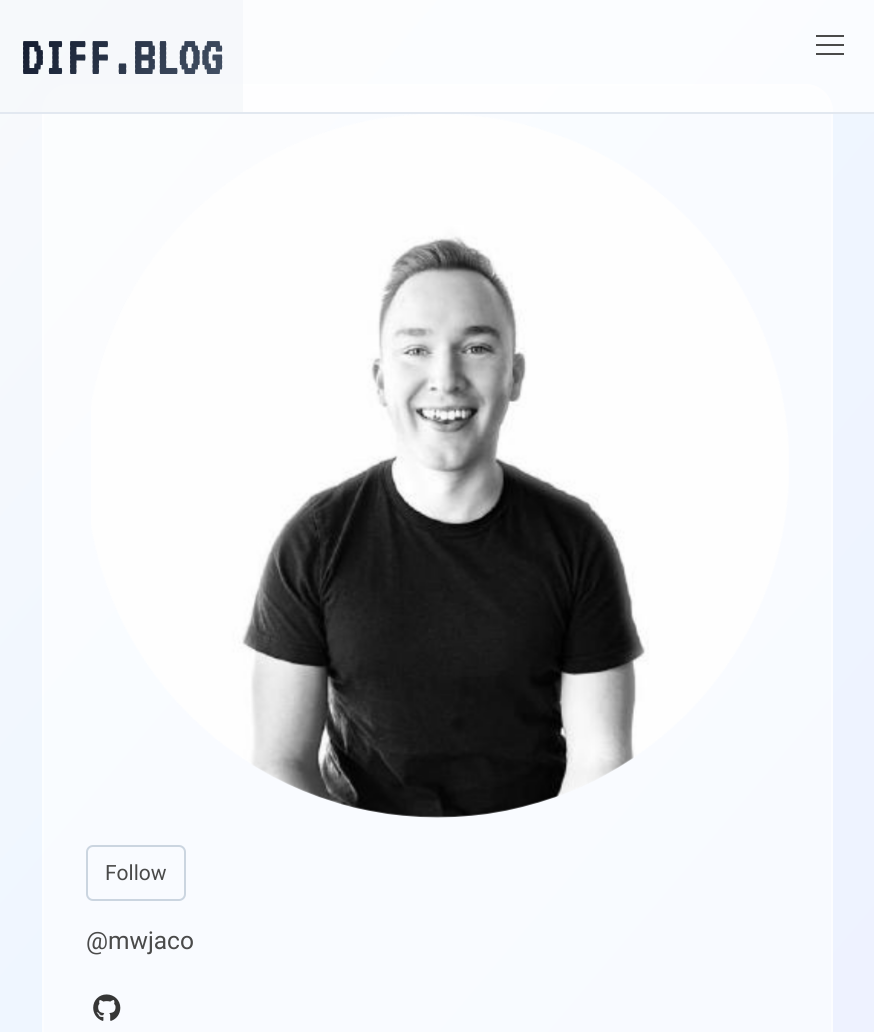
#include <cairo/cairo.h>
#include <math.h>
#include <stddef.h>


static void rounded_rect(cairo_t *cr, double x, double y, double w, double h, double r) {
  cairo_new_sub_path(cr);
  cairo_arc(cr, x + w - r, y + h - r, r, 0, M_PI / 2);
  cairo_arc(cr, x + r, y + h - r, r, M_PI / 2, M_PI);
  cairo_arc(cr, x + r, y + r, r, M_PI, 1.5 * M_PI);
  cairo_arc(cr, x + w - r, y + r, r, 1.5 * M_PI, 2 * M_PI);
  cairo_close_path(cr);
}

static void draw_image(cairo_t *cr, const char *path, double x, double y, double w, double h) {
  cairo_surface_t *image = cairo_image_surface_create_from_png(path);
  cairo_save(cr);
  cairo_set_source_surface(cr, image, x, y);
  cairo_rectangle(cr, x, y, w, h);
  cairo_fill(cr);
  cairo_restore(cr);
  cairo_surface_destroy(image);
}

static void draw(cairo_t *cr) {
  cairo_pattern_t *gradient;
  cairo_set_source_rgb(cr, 1, 1, 1);
  cairo_paint(cr);
  gradient = cairo_pattern_create_linear(-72, 85, 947, 948);
  cairo_pattern_add_color_stop_rgba(gradient, 0, 248 / 255.0, 250 / 255.0, 252 / 255.0, 1);
  cairo_pattern_add_color_stop_rgba(gradient, 0.5, 239 / 255.0, 246 / 255.0, 1, 1);
  cairo_pattern_add_color_stop_rgba(gradient, 1, 238 / 255.0, 242 / 255.0, 1, 1);
  cairo_set_source(cr, gradient);
  cairo_pattern_destroy(gradient);
  cairo_rectangle(cr, 0, 0, 874, 1032);
  cairo_fill(cr);
  cairo_set_source_rgba(cr, 1, 1, 1, 0.6);
  rounded_rect(cr, 42, 84, 791, 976, 28);
  cairo_fill(cr);
  rounded_rect(cr, 43, 85, 789, 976, 27);
  cairo_set_source_rgba(cr, 1, 1, 1, 0.5);
  cairo_stroke(cr);
  cairo_set_source_rgba(cr, 1, 1, 1, 0.7);
  cairo_rectangle(cr, 0, 0, 874, 112);
  cairo_fill(cr);
  cairo_set_source_rgb(cr, 226 / 255.0, 232 / 255.0, 240 / 255.0);
  cairo_rectangle(cr, 0, 112, 874, 2);
  cairo_fill(cr);
  cairo_set_source_rgba(cr, 241 / 255.0, 245 / 255.0, 249 / 255.0, 0.5);
  cairo_rectangle(cr, 0, 0, 243, 112);
  cairo_fill(cr);
  cairo_set_source_rgb(cr, 74 / 255.0, 74 / 255.0, 74 / 255.0);
  cairo_rectangle(cr, 816, 35, 28, 2);
  cairo_fill(cr);
  cairo_rectangle(cr, 816, 44, 28, 2);
  cairo_fill(cr);
  cairo_rectangle(cr, 816, 53, 28, 2);
  cairo_fill(cr);
  draw_image(cr, "images/1.png", 91, 114, 698, 704);
  rounded_rect(cr, 87, 846, 98, 54, 6);
  cairo_set_source_rgb(cr, 203 / 255.0, 213 / 255.0, 224 / 255.0);
  cairo_stroke(cr);
  draw_image(cr, "images/2.png", 93, 994, 28, 27);
  cairo_select_font_face(cr, "VT323", CAIRO_FONT_SLANT_NORMAL, CAIRO_FONT_WEIGHT_BOLD);
  cairo_set_font_size(cr, 56);
  gradient = cairo_pattern_create_linear(50, -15, 193, 127);
  cairo_pattern_add_color_stop_rgba(gradient, 0, 15 / 255.0, 23 / 255.0, 42 / 255.0, 1);
  cairo_pattern_add_color_stop_rgba(gradient, 1, 71 / 255.0, 85 / 255.0, 105 / 255.0, 1);
  cairo_set_source(cr, gradient);
  cairo_pattern_destroy(gradient);
  cairo_move_to(cr, 21, 74);
  cairo_show_text(cr, "DIFF.BLOG");
  cairo_select_font_face(cr, "Roboto", CAIRO_FONT_SLANT_NORMAL, CAIRO_FONT_WEIGHT_NORMAL);
  cairo_set_font_size(cr, 21);
  cairo_set_source_rgb(cr, 74 / 255.0, 74 / 255.0, 74 / 255.0);
  cairo_move_to(cr, 105, 880);
  cairo_show_text(cr, "Follow");
  cairo_set_font_size(cr, 24.5);
  cairo_move_to(cr, 86, 949);
  cairo_show_text(cr, "@mwjaco");
}

int main(void) {
  cairo_surface_t *surface = cairo_image_surface_create(CAIRO_FORMAT_RGB24, 874, 1032);
  cairo_t *cr = cairo_create(surface);
  cairo_font_options_t *options = cairo_font_options_create();
  cairo_font_options_set_hint_metrics(options, CAIRO_HINT_METRICS_OFF);
  cairo_font_options_set_hint_style(options, CAIRO_HINT_STYLE_NONE);
  cairo_set_font_options(cr, options);
  cairo_set_miter_limit(cr, 4);
  draw(cr);
  cairo_surface_write_to_png(surface, "out.png");
  cairo_font_options_destroy(options);
  cairo_destroy(cr);
  cairo_surface_destroy(surface);
  return 0;
}
